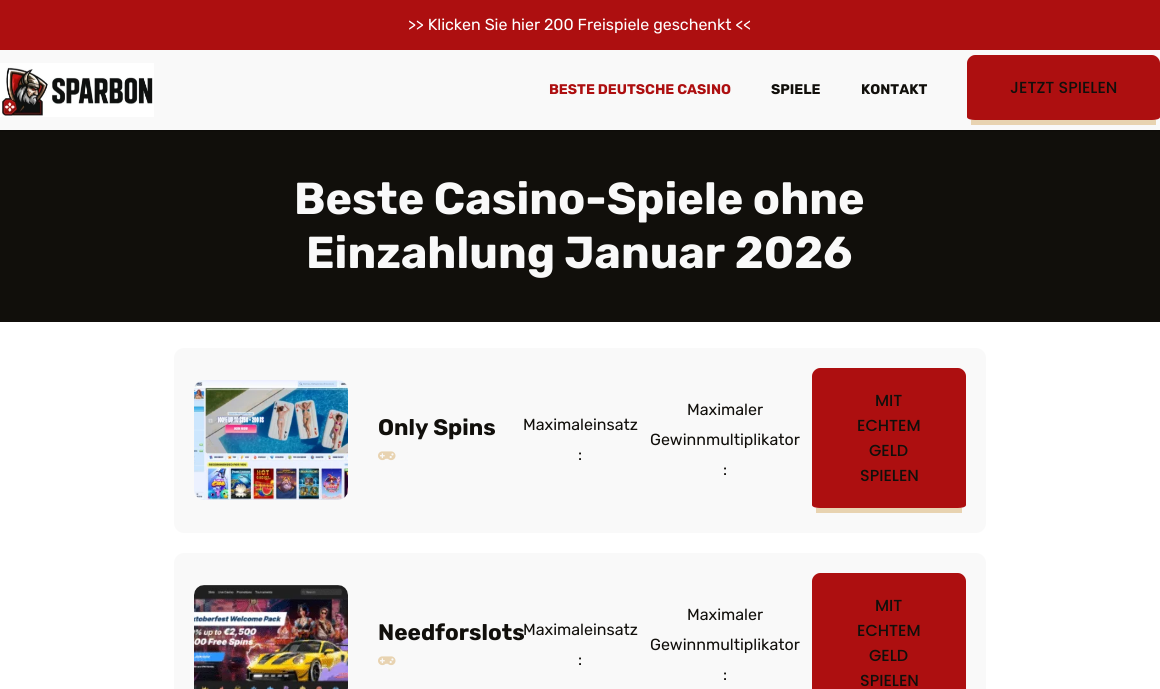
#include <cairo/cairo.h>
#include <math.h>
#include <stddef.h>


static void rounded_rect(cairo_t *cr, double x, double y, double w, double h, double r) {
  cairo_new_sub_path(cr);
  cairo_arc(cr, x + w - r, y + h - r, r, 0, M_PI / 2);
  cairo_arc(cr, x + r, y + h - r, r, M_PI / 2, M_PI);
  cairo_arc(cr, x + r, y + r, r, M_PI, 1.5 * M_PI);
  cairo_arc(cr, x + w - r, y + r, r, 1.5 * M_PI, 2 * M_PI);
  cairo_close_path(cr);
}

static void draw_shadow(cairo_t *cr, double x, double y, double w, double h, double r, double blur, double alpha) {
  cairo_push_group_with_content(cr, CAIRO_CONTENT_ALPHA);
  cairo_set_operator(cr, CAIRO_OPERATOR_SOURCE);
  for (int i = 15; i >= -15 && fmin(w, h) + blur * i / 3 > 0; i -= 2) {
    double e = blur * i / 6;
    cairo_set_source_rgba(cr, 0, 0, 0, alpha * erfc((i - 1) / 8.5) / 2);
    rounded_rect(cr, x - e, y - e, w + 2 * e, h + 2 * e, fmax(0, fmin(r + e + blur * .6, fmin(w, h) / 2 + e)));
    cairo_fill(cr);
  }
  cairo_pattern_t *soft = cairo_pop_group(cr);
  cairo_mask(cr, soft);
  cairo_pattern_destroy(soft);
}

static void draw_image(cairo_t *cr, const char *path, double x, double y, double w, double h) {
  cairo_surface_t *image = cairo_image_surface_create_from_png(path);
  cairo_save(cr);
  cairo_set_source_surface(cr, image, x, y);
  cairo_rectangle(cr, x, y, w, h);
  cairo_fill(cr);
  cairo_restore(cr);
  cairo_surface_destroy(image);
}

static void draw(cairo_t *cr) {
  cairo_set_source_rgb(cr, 1, 1, 1);
  cairo_paint(cr);
  cairo_set_source_rgb(cr, 17 / 255.0, 15 / 255.0, 11 / 255.0);
  cairo_rectangle(cr, 0, 130, 1160, 192);
  cairo_fill(cr);
  cairo_set_source_rgb(cr, 0, 0, 0);
  draw_shadow(cr, 0, 0, 1160, 130, 0, 1.5, 0.5);
  cairo_set_source_rgb(cr, 249 / 255.0, 249 / 255.0, 249 / 255.0);
  cairo_rectangle(cr, 0, 50, 1160, 80);
  cairo_fill(cr);
  cairo_set_source_rgb(cr, 173 / 255.0, 15 / 255.0, 16 / 255.0);
  cairo_rectangle(cr, 0, 0, 1160, 50);
  cairo_fill(cr);
  draw_image(cr, "images/1.png", 0, 63, 154, 54);
  cairo_new_path(cr);
  cairo_move_to(cr, 975, 55);
  cairo_line_to(cr, 1152, 55);
  cairo_curve_to(cr, 1156, 55, 1160, 59, 1160, 63);
  cairo_line_to(cr, 1160, 117);
  cairo_curve_to(cr, 1160, 119, 1156, 120, 1152, 120);
  cairo_line_to(cr, 975, 120);
  cairo_curve_to(cr, 971, 120, 967, 119, 967, 117);
  cairo_line_to(cr, 967, 63);
  cairo_curve_to(cr, 967, 59, 971, 55, 975, 55);
  cairo_close_path(cr);
  cairo_fill(cr);
  cairo_set_source_rgb(cr, 232 / 255.0, 211 / 255.0, 177 / 255.0);
  cairo_rectangle(cr, 971, 120, 185, 5);
  cairo_fill(cr);
  cairo_set_source_rgb(cr, 249 / 255.0, 249 / 255.0, 249 / 255.0);
  rounded_rect(cr, 174, 348, 812, 185, 10);
  cairo_fill(cr);
  draw_image(cr, "images/2.png", 194, 380, 154, 120);
  draw_image(cr, "images/3.png", 378, 451, 18, 10);
  cairo_set_source_rgb(cr, 173 / 255.0, 15 / 255.0, 16 / 255.0);
  cairo_new_path(cr);
  cairo_move_to(cr, 820, 368);
  cairo_line_to(cr, 958, 368);
  cairo_curve_to(cr, 962, 368, 966, 372, 966, 376);
  cairo_line_to(cr, 966, 505);
  cairo_curve_to(cr, 966, 507, 962, 508, 958, 508);
  cairo_line_to(cr, 820, 508);
  cairo_curve_to(cr, 816, 508, 812, 507, 812, 505);
  cairo_line_to(cr, 812, 376);
  cairo_curve_to(cr, 812, 372, 816, 368, 820, 368);
  cairo_close_path(cr);
  cairo_fill(cr);
  cairo_set_source_rgb(cr, 232 / 255.0, 211 / 255.0, 177 / 255.0);
  cairo_rectangle(cr, 816, 508, 146, 5);
  cairo_fill(cr);
  cairo_set_source_rgb(cr, 249 / 255.0, 249 / 255.0, 249 / 255.0);
  rounded_rect(cr, 174, 553, 812, 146, 10);
  cairo_fill(cr);
  draw_image(cr, "images/4.png", 194, 585, 154, 104);
  draw_image(cr, "images/3.png", 378, 656, 18, 10);
  cairo_set_source_rgb(cr, 173 / 255.0, 15 / 255.0, 16 / 255.0);
  cairo_new_path(cr);
  cairo_move_to(cr, 820, 573);
  cairo_line_to(cr, 958, 573);
  cairo_curve_to(cr, 962, 573, 966, 577, 966, 581);
  cairo_line_to(cr, 966, 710);
  cairo_curve_to(cr, 966, 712, 962, 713, 958, 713);
  cairo_line_to(cr, 820, 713);
  cairo_curve_to(cr, 816, 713, 812, 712, 812, 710);
  cairo_line_to(cr, 812, 581);
  cairo_curve_to(cr, 812, 577, 816, 573, 820, 573);
  cairo_close_path(cr);
  cairo_fill(cr);
  cairo_select_font_face(cr, "Rubik", CAIRO_FONT_SLANT_NORMAL, CAIRO_FONT_WEIGHT_NORMAL);
  cairo_set_font_size(cr, 16);
  cairo_set_source_rgb(cr, 1, 1, 1);
  cairo_move_to(cr, 408, 30);
  cairo_show_text(cr, ">> Klicken Sie hier 200 Freispiele geschenkt <<");
  cairo_select_font_face(cr, "Rubik", CAIRO_FONT_SLANT_NORMAL, CAIRO_FONT_WEIGHT_BOLD);
  cairo_set_font_size(cr, 14);
  cairo_set_source_rgb(cr, 173 / 255.0, 15 / 255.0, 16 / 255.0);
  cairo_move_to(cr, 549, 94);
  cairo_show_text(cr, "BESTE DEUTSCHE CASINO");
  cairo_set_source_rgb(cr, 17 / 255.0, 15 / 255.0, 11 / 255.0);
  cairo_move_to(cr, 771, 94);
  cairo_show_text(cr, "SPIELE");
  cairo_move_to(cr, 861, 94);
  cairo_show_text(cr, "KONTAKT");
  cairo_select_font_face(cr, "Poppins Medium", CAIRO_FONT_SLANT_NORMAL, CAIRO_FONT_WEIGHT_NORMAL);
  cairo_set_font_size(cr, 16);
  cairo_move_to(cr, 1010, 93);
  cairo_show_text(cr, "JETZT SPIELEN");
  cairo_select_font_face(cr, "Rubik", CAIRO_FONT_SLANT_NORMAL, CAIRO_FONT_WEIGHT_BOLD);
  cairo_set_font_size(cr, 44.75);
  cairo_set_source_rgb(cr, 249 / 255.0, 249 / 255.0, 249 / 255.0);
  cairo_move_to(cr, 294, 214);
  cairo_show_text(cr, "Beste Casino-Spiele ohne");
  cairo_move_to(cr, 306, 268);
  cairo_show_text(cr, "Einzahlung Januar 2026");
  cairo_set_font_size(cr, 22.5);
  cairo_set_source_rgb(cr, 17 / 255.0, 15 / 255.0, 11 / 255.0);
  cairo_move_to(cr, 378, 435);
  cairo_show_text(cr, "Only Spins");
  cairo_select_font_face(cr, "Rubik", CAIRO_FONT_SLANT_NORMAL, CAIRO_FONT_WEIGHT_NORMAL);
  cairo_set_font_size(cr, 16);
  cairo_move_to(cr, 523, 430);
  cairo_show_text(cr, "Maximaleinsatz");
  cairo_move_to(cr, 578, 460);
  cairo_show_text(cr, ":");
  cairo_move_to(cr, 687, 415);
  cairo_show_text(cr, "Maximaler");
  cairo_move_to(cr, 650, 445);
  cairo_show_text(cr, "Gewinnmultiplikator");
  cairo_move_to(cr, 723, 475);
  cairo_show_text(cr, ":");
  cairo_select_font_face(cr, "Poppins Medium", CAIRO_FONT_SLANT_NORMAL, CAIRO_FONT_WEIGHT_NORMAL);
  cairo_move_to(cr, 875, 406);
  cairo_show_text(cr, "MIT");
  cairo_move_to(cr, 857, 431);
  cairo_show_text(cr, "ECHTEM");
  cairo_move_to(cr, 869, 456);
  cairo_show_text(cr, "GELD");
  cairo_move_to(cr, 860, 481);
  cairo_show_text(cr, "SPIELEN");
  cairo_select_font_face(cr, "Rubik", CAIRO_FONT_SLANT_NORMAL, CAIRO_FONT_WEIGHT_BOLD);
  cairo_set_font_size(cr, 22.5);
  cairo_move_to(cr, 378, 640);
  cairo_show_text(cr, "Needforslots");
  cairo_select_font_face(cr, "Rubik", CAIRO_FONT_SLANT_NORMAL, CAIRO_FONT_WEIGHT_NORMAL);
  cairo_set_font_size(cr, 16);
  cairo_move_to(cr, 523, 635);
  cairo_show_text(cr, "Maximaleinsatz");
  cairo_move_to(cr, 578, 665);
  cairo_show_text(cr, ":");
  cairo_move_to(cr, 687, 620);
  cairo_show_text(cr, "Maximaler");
  cairo_move_to(cr, 650, 650);
  cairo_show_text(cr, "Gewinnmultiplikator");
  cairo_move_to(cr, 723, 680);
  cairo_show_text(cr, ":");
  cairo_select_font_face(cr, "Poppins Medium", CAIRO_FONT_SLANT_NORMAL, CAIRO_FONT_WEIGHT_NORMAL);
  cairo_move_to(cr, 875, 611);
  cairo_show_text(cr, "MIT");
  cairo_move_to(cr, 857, 636);
  cairo_show_text(cr, "ECHTEM");
  cairo_move_to(cr, 869, 661);
  cairo_show_text(cr, "GELD");
  cairo_move_to(cr, 860, 686);
  cairo_show_text(cr, "SPIELEN");
}

int main(void) {
  cairo_surface_t *surface = cairo_image_surface_create(CAIRO_FORMAT_RGB24, 1160, 689);
  cairo_t *cr = cairo_create(surface);
  cairo_font_options_t *options = cairo_font_options_create();
  cairo_font_options_set_hint_metrics(options, CAIRO_HINT_METRICS_OFF);
  cairo_font_options_set_hint_style(options, CAIRO_HINT_STYLE_NONE);
  cairo_set_font_options(cr, options);
  cairo_set_miter_limit(cr, 4);
  draw(cr);
  cairo_surface_write_to_png(surface, "out.png");
  cairo_font_options_destroy(options);
  cairo_destroy(cr);
  cairo_surface_destroy(surface);
  return 0;
}
